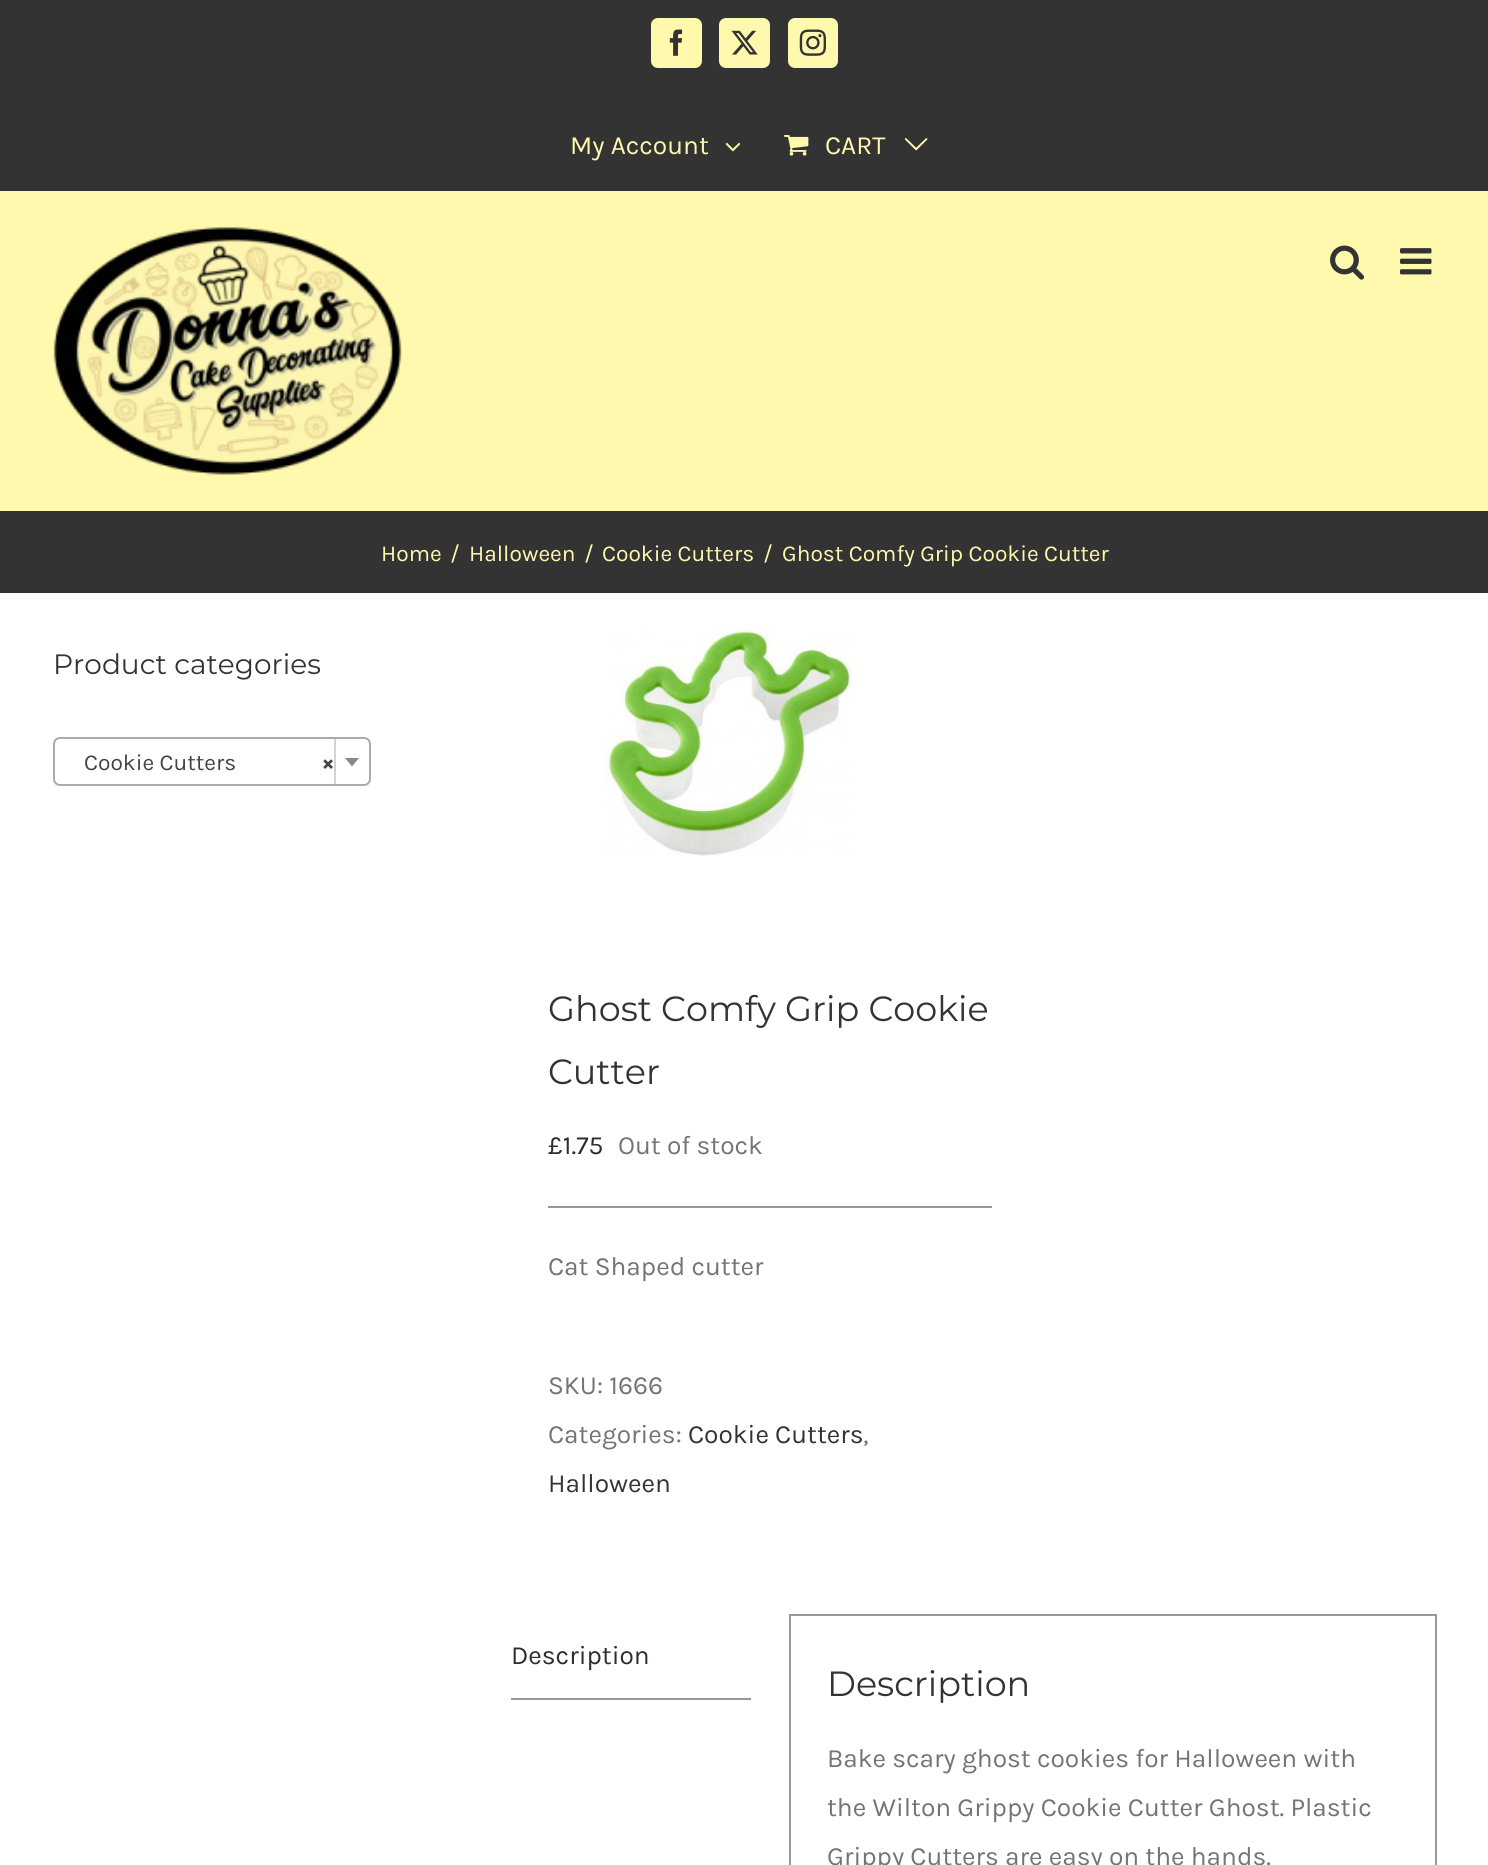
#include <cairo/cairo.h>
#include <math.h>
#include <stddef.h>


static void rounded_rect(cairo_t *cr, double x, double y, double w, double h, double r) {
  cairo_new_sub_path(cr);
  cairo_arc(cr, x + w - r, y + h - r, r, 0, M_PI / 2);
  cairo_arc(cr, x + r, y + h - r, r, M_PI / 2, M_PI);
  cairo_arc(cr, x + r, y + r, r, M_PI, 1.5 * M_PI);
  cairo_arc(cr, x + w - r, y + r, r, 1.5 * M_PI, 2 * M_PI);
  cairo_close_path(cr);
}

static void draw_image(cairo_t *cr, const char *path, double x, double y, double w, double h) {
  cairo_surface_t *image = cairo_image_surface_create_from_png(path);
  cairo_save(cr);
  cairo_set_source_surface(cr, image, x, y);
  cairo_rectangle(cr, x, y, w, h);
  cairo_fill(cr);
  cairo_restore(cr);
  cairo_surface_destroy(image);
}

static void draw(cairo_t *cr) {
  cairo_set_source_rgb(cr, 51 / 255.0, 51 / 255.0, 51 / 255.0);
  cairo_paint(cr);
  cairo_set_source_rgb(cr, 1, 249 / 255.0, 174 / 255.0);
  rounded_rect(cr, 652, 19, 49, 48, 6);
  cairo_fill_preserve(cr);
  cairo_stroke(cr);
  draw_image(cr, "images/1.png", 669, 29, 14, 27);
  rounded_rect(cr, 720, 19, 49, 48, 6);
  cairo_fill_preserve(cr);
  cairo_stroke(cr);
  draw_image(cr, "images/2.png", 731, 30, 27, 25);
  rounded_rect(cr, 789, 19, 48, 48, 6);
  cairo_fill_preserve(cr);
  cairo_stroke(cr);
  draw_image(cr, "images/3.png", 799, 29, 27, 27);
  draw_image(cr, "images/4.png", 725, 142, 16, 10);
  draw_image(cr, "images/5.png", 784, 135, 25, 21);
  draw_image(cr, "images/6.png", 904, 138, 24, 13);
  cairo_rectangle(cr, 0, 191, 1488, 320);
  cairo_fill(cr);
  draw_image(cr, "images/7.png", 53, 227, 349, 248);
  draw_image(cr, "images/8.png", 1330, 245, 35, 35);
  draw_image(cr, "images/9.png", 1400, 248, 32, 27);
  cairo_set_source_rgb(cr, 1, 1, 1);
  cairo_rectangle(cr, 0, 593, 1488, 1272);
  cairo_fill(cr);
  rounded_rect(cr, 54, 738, 316, 47, 6);
  cairo_set_source_rgb(cr, 170 / 255.0, 170 / 255.0, 170 / 255.0);
  cairo_stroke(cr);
  cairo_set_source_rgb(cr, 210 / 255.0, 210 / 255.0, 210 / 255.0);
  cairo_rectangle(cr, 334, 739, 2, 45);
  cairo_fill(cr);
  cairo_set_source_rgb(cr, 136 / 255.0, 136 / 255.0, 136 / 255.0);
  cairo_new_path(cr);
  cairo_move_to(cr, 345, 758);
  cairo_line_to(cr, 359, 758);
  cairo_line_to(cr, 352, 766.5);
  cairo_close_path(cr);
  cairo_fill(cr);
  draw_image(cr, "images/10.png", 604, 624, 248, 232);
  cairo_set_source_rgb(cr, 153 / 255.0, 151 / 255.0, 151 / 255.0);
  cairo_rectangle(cr, 548, 1206, 444, 2);
  cairo_fill(cr);
  cairo_rectangle(cr, 511, 1698, 240, 2);
  cairo_fill(cr);
  cairo_rectangle(cr, 790, 1615, 646, 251);
  cairo_stroke(cr);
  cairo_select_font_face(cr, "Karla", CAIRO_FONT_SLANT_NORMAL, CAIRO_FONT_WEIGHT_NORMAL);
  cairo_set_font_size(cr, 26.25);
  cairo_set_source_rgb(cr, 1, 249 / 255.0, 174 / 255.0);
  cairo_move_to(cr, 570, 154);
  cairo_show_text(cr, "My Account");
  cairo_move_to(cr, 825, 154);
  cairo_show_text(cr, "CART");
  cairo_set_font_size(cr, 22.75);
  cairo_move_to(cr, 381, 561);
  cairo_show_text(cr, "Home");
  cairo_move_to(cr, 450, 561);
  cairo_show_text(cr, "/");
  cairo_move_to(cr, 469, 561);
  cairo_show_text(cr, "Halloween");
  cairo_move_to(cr, 584, 561);
  cairo_show_text(cr, "/");
  cairo_move_to(cr, 602, 561);
  cairo_show_text(cr, "Cookie Cutters");
  cairo_move_to(cr, 763, 561);
  cairo_show_text(cr, "/");
  cairo_move_to(cr, 782, 561);
  cairo_show_text(cr, "Ghost Comfy Grip Cookie Cutter");
  cairo_select_font_face(cr, "Montserrat", CAIRO_FONT_SLANT_NORMAL, CAIRO_FONT_WEIGHT_NORMAL);
  cairo_set_font_size(cr, 28);
  cairo_set_source_rgb(cr, 51 / 255.0, 51 / 255.0, 51 / 255.0);
  cairo_move_to(cr, 53, 674);
  cairo_show_text(cr, "Product categories");
  cairo_select_font_face(cr, "Karla", CAIRO_FONT_SLANT_NORMAL, CAIRO_FONT_WEIGHT_NORMAL);
  cairo_set_font_size(cr, 22.75);
  cairo_set_source_rgb(cr, 68 / 255.0, 68 / 255.0, 68 / 255.0);
  cairo_move_to(cr, 84, 770);
  cairo_show_text(cr, "Cookie Cutters");
  cairo_select_font_face(cr, "Karla", CAIRO_FONT_SLANT_NORMAL, CAIRO_FONT_WEIGHT_BOLD);
  cairo_move_to(cr, 322, 770);
  cairo_show_text(cr, "×");
  cairo_select_font_face(cr, "Montserrat", CAIRO_FONT_SLANT_NORMAL, CAIRO_FONT_WEIGHT_NORMAL);
  cairo_set_font_size(cr, 35);
  cairo_set_source_rgb(cr, 51 / 255.0, 51 / 255.0, 51 / 255.0);
  cairo_move_to(cr, 548, 1021);
  cairo_show_text(cr, "Ghost Comfy Grip Cookie");
  cairo_move_to(cr, 548, 1084);
  cairo_show_text(cr, "Cutter");
  cairo_select_font_face(cr, "Karla", CAIRO_FONT_SLANT_NORMAL, CAIRO_FONT_WEIGHT_NORMAL);
  cairo_set_font_size(cr, 26.25);
  cairo_set_source_rgb(cr, 43 / 255.0, 46 / 255.0, 50 / 255.0);
  cairo_move_to(cr, 548, 1154);
  cairo_show_text(cr, "£1.75");
  cairo_set_source_rgb(cr, 116 / 255.0, 116 / 255.0, 116 / 255.0);
  cairo_move_to(cr, 618, 1154);
  cairo_show_text(cr, "Out of stock");
  cairo_move_to(cr, 548, 1275);
  cairo_show_text(cr, "Cat Shaped cutter");
  cairo_move_to(cr, 548, 1394);
  cairo_show_text(cr, "SKU: 1666");
  cairo_move_to(cr, 548, 1443);
  cairo_show_text(cr, "Categories:");
  cairo_set_source_rgb(cr, 51 / 255.0, 51 / 255.0, 51 / 255.0);
  cairo_move_to(cr, 688, 1443);
  cairo_show_text(cr, "Cookie Cutters");
  cairo_set_source_rgb(cr, 116 / 255.0, 116 / 255.0, 116 / 255.0);
  cairo_move_to(cr, 863, 1443);
  cairo_show_text(cr, ",");
  cairo_set_source_rgb(cr, 51 / 255.0, 51 / 255.0, 51 / 255.0);
  cairo_move_to(cr, 548, 1492);
  cairo_show_text(cr, "Halloween");
  cairo_set_source_rgb(cr, 43 / 255.0, 46 / 255.0, 50 / 255.0);
  cairo_move_to(cr, 511, 1664);
  cairo_show_text(cr, "Description");
  cairo_select_font_face(cr, "Montserrat", CAIRO_FONT_SLANT_NORMAL, CAIRO_FONT_WEIGHT_NORMAL);
  cairo_set_font_size(cr, 35);
  cairo_set_source_rgb(cr, 51 / 255.0, 51 / 255.0, 51 / 255.0);
  cairo_move_to(cr, 827, 1696);
  cairo_show_text(cr, "Description");
  cairo_select_font_face(cr, "Karla", CAIRO_FONT_SLANT_NORMAL, CAIRO_FONT_WEIGHT_NORMAL);
  cairo_set_font_size(cr, 26.25);
  cairo_set_source_rgb(cr, 116 / 255.0, 116 / 255.0, 116 / 255.0);
  cairo_move_to(cr, 827, 1767);
  cairo_show_text(cr, "Bake scary ghost cookies for Halloween with");
  cairo_move_to(cr, 827, 1816);
  cairo_show_text(cr, "the Wilton Grippy Cookie Cutter Ghost. Plastic");
  cairo_move_to(cr, 827, 1865);
  cairo_show_text(cr, "Grippy Cutters are easy on the hands.");
}

int main(void) {
  cairo_surface_t *surface = cairo_image_surface_create(CAIRO_FORMAT_RGB24, 1488, 1865);
  cairo_t *cr = cairo_create(surface);
  cairo_font_options_t *options = cairo_font_options_create();
  cairo_font_options_set_hint_metrics(options, CAIRO_HINT_METRICS_OFF);
  cairo_font_options_set_hint_style(options, CAIRO_HINT_STYLE_NONE);
  cairo_set_font_options(cr, options);
  cairo_set_miter_limit(cr, 4);
  draw(cr);
  cairo_surface_write_to_png(surface, "out.png");
  cairo_font_options_destroy(options);
  cairo_destroy(cr);
  cairo_surface_destroy(surface);
  return 0;
}
